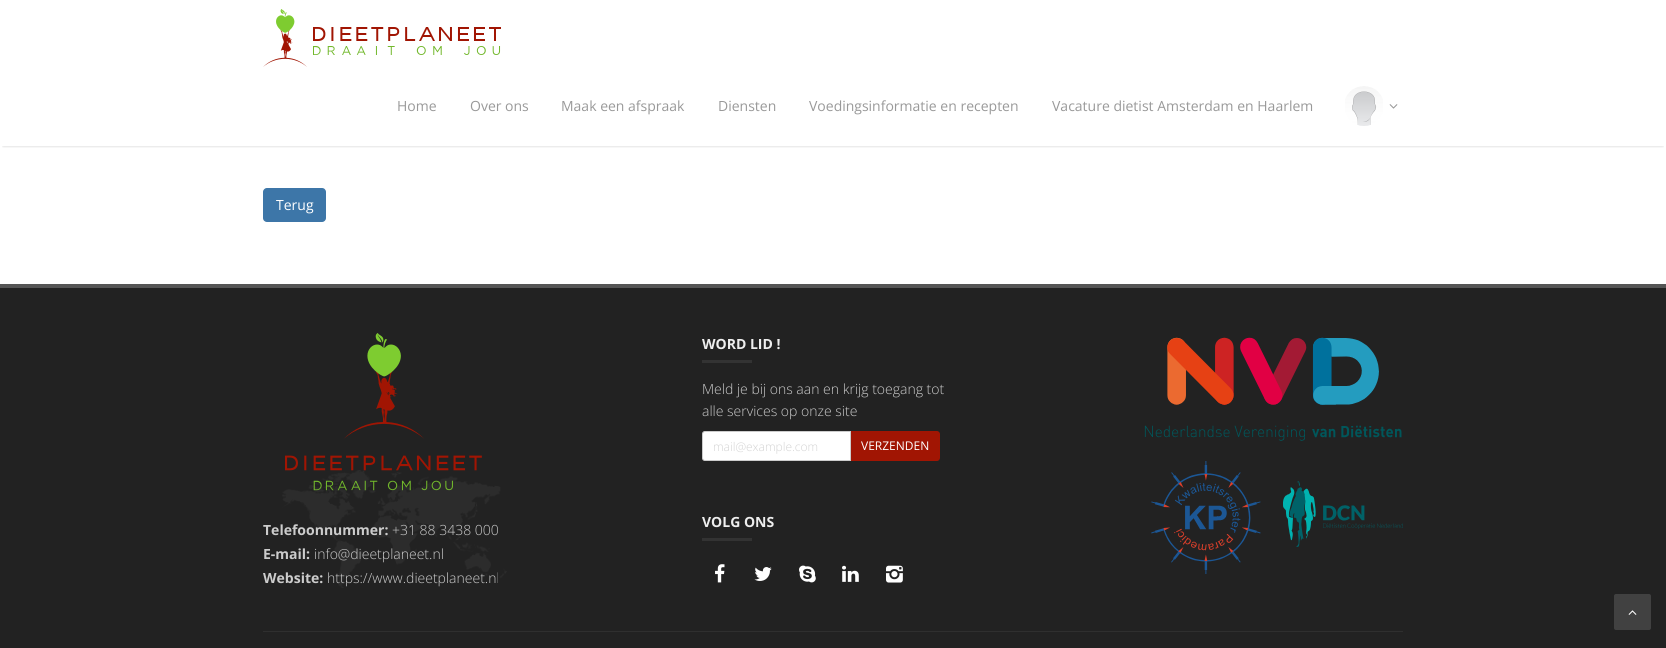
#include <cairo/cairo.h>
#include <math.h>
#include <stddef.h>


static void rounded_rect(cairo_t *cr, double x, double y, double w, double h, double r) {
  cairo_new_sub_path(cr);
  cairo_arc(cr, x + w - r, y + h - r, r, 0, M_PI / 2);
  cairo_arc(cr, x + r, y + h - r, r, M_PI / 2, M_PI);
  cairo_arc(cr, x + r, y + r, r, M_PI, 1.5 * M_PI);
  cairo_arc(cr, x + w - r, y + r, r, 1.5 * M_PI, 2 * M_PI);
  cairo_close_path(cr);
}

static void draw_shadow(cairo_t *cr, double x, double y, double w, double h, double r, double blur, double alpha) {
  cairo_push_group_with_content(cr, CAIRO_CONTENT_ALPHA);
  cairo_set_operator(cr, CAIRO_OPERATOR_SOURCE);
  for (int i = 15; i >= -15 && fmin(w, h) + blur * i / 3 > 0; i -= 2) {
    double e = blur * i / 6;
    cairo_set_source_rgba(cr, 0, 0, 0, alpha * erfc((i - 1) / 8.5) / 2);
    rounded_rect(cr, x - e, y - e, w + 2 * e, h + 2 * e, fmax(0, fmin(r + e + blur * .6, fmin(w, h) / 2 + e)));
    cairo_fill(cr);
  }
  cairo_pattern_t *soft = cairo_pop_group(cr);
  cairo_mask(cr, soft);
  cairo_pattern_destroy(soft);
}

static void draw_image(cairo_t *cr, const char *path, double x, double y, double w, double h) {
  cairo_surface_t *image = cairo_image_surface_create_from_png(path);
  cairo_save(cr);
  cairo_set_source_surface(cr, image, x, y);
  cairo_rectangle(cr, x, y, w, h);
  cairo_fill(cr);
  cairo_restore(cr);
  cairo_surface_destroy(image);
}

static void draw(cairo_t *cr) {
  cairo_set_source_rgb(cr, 1, 1, 1);
  cairo_paint(cr);
  cairo_save(cr);
  cairo_rectangle(cr, 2, 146, 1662, 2);
  cairo_clip(cr);
  cairo_set_source_rgb(cr, 0, 0, 0);
  draw_shadow(cr, 3, 6, 1660, 140, 0, 1.5, 0.2);
  cairo_restore(cr);
  draw_image(cr, "images/1.png", 263, 9, 238, 58);
  draw_image(cr, "images/2.png", 1345, 86, 38, 40);
  draw_image(cr, "images/3.png", 1389, 104, 9, 5);
  cairo_set_source_rgb(cr, 61 / 255.0, 118 / 255.0, 168 / 255.0);
  rounded_rect(cr, 263, 188, 63, 34, 4);
  cairo_fill(cr);
  cairo_set_source_rgb(cr, 34 / 255.0, 34 / 255.0, 34 / 255.0);
  cairo_rectangle(cr, 0, 288, 1666, 360);
  cairo_fill(cr);
  cairo_set_source_rgb(cr, 85 / 255.0, 85 / 255.0, 85 / 255.0);
  cairo_rectangle(cr, 0, 284, 1666, 4);
  cairo_fill(cr);
  cairo_set_source_rgb(cr, 51 / 255.0, 51 / 255.0, 51 / 255.0);
  cairo_rectangle(cr, 702, 360, 50, 3);
  cairo_fill(cr);
  cairo_set_source_rgb(cr, 161 / 255.0, 21 / 255.0, 3 / 255.0);
  cairo_new_path(cr);
  cairo_move_to(cr, 850, 431);
  cairo_line_to(cr, 937, 431);
  cairo_curve_to(cr, 938.5, 431, 940, 432.5, 940, 434);
  cairo_line_to(cr, 940, 458);
  cairo_curve_to(cr, 940, 459.5, 938.5, 461, 937, 461);
  cairo_line_to(cr, 850, 461);
  cairo_close_path(cr);
  cairo_fill(cr);
  cairo_set_source_rgb(cr, 1, 1, 1);
  cairo_new_path(cr);
  cairo_move_to(cr, 705, 431.5);
  cairo_line_to(cr, 850.5, 431.5);
  cairo_line_to(cr, 850.5, 460.5);
  cairo_line_to(cr, 705, 460.5);
  cairo_curve_to(cr, 703.5, 460.5, 702.5, 459.5, 702.5, 458);
  cairo_line_to(cr, 702.5, 434);
  cairo_curve_to(cr, 702.5, 432.5, 703.5, 431.5, 705, 431.5);
  cairo_close_path(cr);
  cairo_fill_preserve(cr);
  cairo_set_source_rgb(cr, 204 / 255.0, 204 / 255.0, 204 / 255.0);
  cairo_set_line_width(cr, 1);
  cairo_stroke(cr);
  cairo_set_source_rgb(cr, 51 / 255.0, 51 / 255.0, 51 / 255.0);
  cairo_rectangle(cr, 702, 538, 50, 3);
  cairo_fill(cr);
  draw_image(cr, "images/4.png", 715, 564, 10, 19);
  draw_image(cr, "images/5.png", 754, 567, 18, 14);
  draw_image(cr, "images/6.png", 799, 565, 17, 18);
  draw_image(cr, "images/7.png", 842, 565, 17, 17);
  draw_image(cr, "images/8.png", 886, 565, 17, 18);
  draw_image(cr, "images/9.png", 1144, 337, 258, 104);
  draw_image(cr, "images/10.png", 1151, 461, 110, 113);
  draw_image(cr, "images/11.png", 1283, 481, 120, 66);
  cairo_set_source_rgb(cr, 47 / 255.0, 47 / 255.0, 47 / 255.0);
  cairo_rectangle(cr, 263, 631, 1140, 1);
  cairo_fill(cr);
  cairo_set_source_rgb(cr, 65 / 255.0, 65 / 255.0, 65 / 255.0);
  rounded_rect(cr, 1614, 594, 37, 36, 2);
  cairo_fill(cr);
  draw_image(cr, "images/14.png", 1628, 610, 9, 5);
  cairo_select_font_face(cr, "Open Sans", CAIRO_FONT_SLANT_NORMAL, CAIRO_FONT_WEIGHT_NORMAL);
  cairo_set_font_size(cr, 14);
  cairo_set_source_rgb(cr, 153 / 255.0, 153 / 255.0, 153 / 255.0);
  cairo_move_to(cr, 397, 111);
  cairo_show_text(cr, "Home");
  cairo_move_to(cr, 470, 111);
  cairo_show_text(cr, "Over ons");
  cairo_move_to(cr, 561, 111);
  cairo_show_text(cr, "Maak een afspraak");
  cairo_move_to(cr, 718, 111);
  cairo_show_text(cr, "Diensten");
  cairo_move_to(cr, 809, 111);
  cairo_show_text(cr, "Voedingsinformatie en recepten");
  cairo_move_to(cr, 1052, 111);
  cairo_show_text(cr, "Vacature dietist Amsterdam en Haarlem");
  cairo_set_source_rgb(cr, 1, 1, 1);
  cairo_move_to(cr, 276, 210);
  cairo_show_text(cr, "Terug");
  cairo_select_font_face(cr, "Open Sans", CAIRO_FONT_SLANT_NORMAL, CAIRO_FONT_WEIGHT_BOLD);
  cairo_set_source_rgb(cr, 238 / 255.0, 238 / 255.0, 238 / 255.0);
  cairo_move_to(cr, 702, 349);
  cairo_show_text(cr, "WORD LID !");
  cairo_select_font_face(cr, "Open Sans Light", CAIRO_FONT_SLANT_NORMAL, CAIRO_FONT_WEIGHT_NORMAL);
  cairo_set_source_rgb(cr, 204 / 255.0, 204 / 255.0, 204 / 255.0);
  cairo_move_to(cr, 702, 394);
  cairo_show_text(cr, "Meld je bij ons aan en krijg toegang tot");
  cairo_move_to(cr, 702, 416);
  cairo_show_text(cr, "alle services op onze site");
  cairo_set_font_size(cr, 12);
  cairo_set_source_rgb(cr, 211 / 255.0, 211 / 255.0, 211 / 255.0);
  cairo_move_to(cr, 713, 451);
  cairo_show_text(cr, "mail@example.com");
  cairo_select_font_face(cr, "Open Sans", CAIRO_FONT_SLANT_NORMAL, CAIRO_FONT_WEIGHT_NORMAL);
  cairo_set_source_rgb(cr, 1, 1, 1);
  cairo_move_to(cr, 861, 450);
  cairo_show_text(cr, "VERZENDEN");
  cairo_select_font_face(cr, "Open Sans", CAIRO_FONT_SLANT_NORMAL, CAIRO_FONT_WEIGHT_BOLD);
  cairo_set_font_size(cr, 14);
  cairo_set_source_rgb(cr, 238 / 255.0, 238 / 255.0, 238 / 255.0);
  cairo_move_to(cr, 702, 527);
  cairo_show_text(cr, "VOLG ONS");
  cairo_set_source_rgb(cr, 204 / 255.0, 204 / 255.0, 204 / 255.0);
  cairo_move_to(cr, 263, 535);
  cairo_show_text(cr, "Telefoonnummer:");
  cairo_select_font_face(cr, "Open Sans Light", CAIRO_FONT_SLANT_NORMAL, CAIRO_FONT_WEIGHT_NORMAL);
  cairo_move_to(cr, 392, 535);
  cairo_show_text(cr, "+31 88 3438 000");
  cairo_select_font_face(cr, "Open Sans", CAIRO_FONT_SLANT_NORMAL, CAIRO_FONT_WEIGHT_BOLD);
  cairo_move_to(cr, 263, 559);
  cairo_show_text(cr, "E-mail:");
  cairo_select_font_face(cr, "Open Sans Light", CAIRO_FONT_SLANT_NORMAL, CAIRO_FONT_WEIGHT_NORMAL);
  cairo_move_to(cr, 314, 559);
  cairo_show_text(cr, "info@dieetplaneet.nl");
  cairo_select_font_face(cr, "Open Sans", CAIRO_FONT_SLANT_NORMAL, CAIRO_FONT_WEIGHT_BOLD);
  cairo_move_to(cr, 263, 583);
  cairo_show_text(cr, "Website:");
  cairo_select_font_face(cr, "Open Sans Light", CAIRO_FONT_SLANT_NORMAL, CAIRO_FONT_WEIGHT_NORMAL);
  cairo_move_to(cr, 327, 583);
  cairo_show_text(cr, "https://www.dieetplaneet.nl");
  draw_image(cr, "images/12.png", 282, 470, 225, 118);
  draw_image(cr, "images/13.png", 285, 333, 197, 158);
}

int main(void) {
  cairo_surface_t *surface = cairo_image_surface_create(CAIRO_FORMAT_RGB24, 1666, 648);
  cairo_t *cr = cairo_create(surface);
  cairo_font_options_t *options = cairo_font_options_create();
  cairo_font_options_set_hint_metrics(options, CAIRO_HINT_METRICS_OFF);
  cairo_font_options_set_hint_style(options, CAIRO_HINT_STYLE_NONE);
  cairo_set_font_options(cr, options);
  cairo_set_miter_limit(cr, 4);
  draw(cr);
  cairo_surface_write_to_png(surface, "out.png");
  cairo_font_options_destroy(options);
  cairo_destroy(cr);
  cairo_surface_destroy(surface);
  return 0;
}
